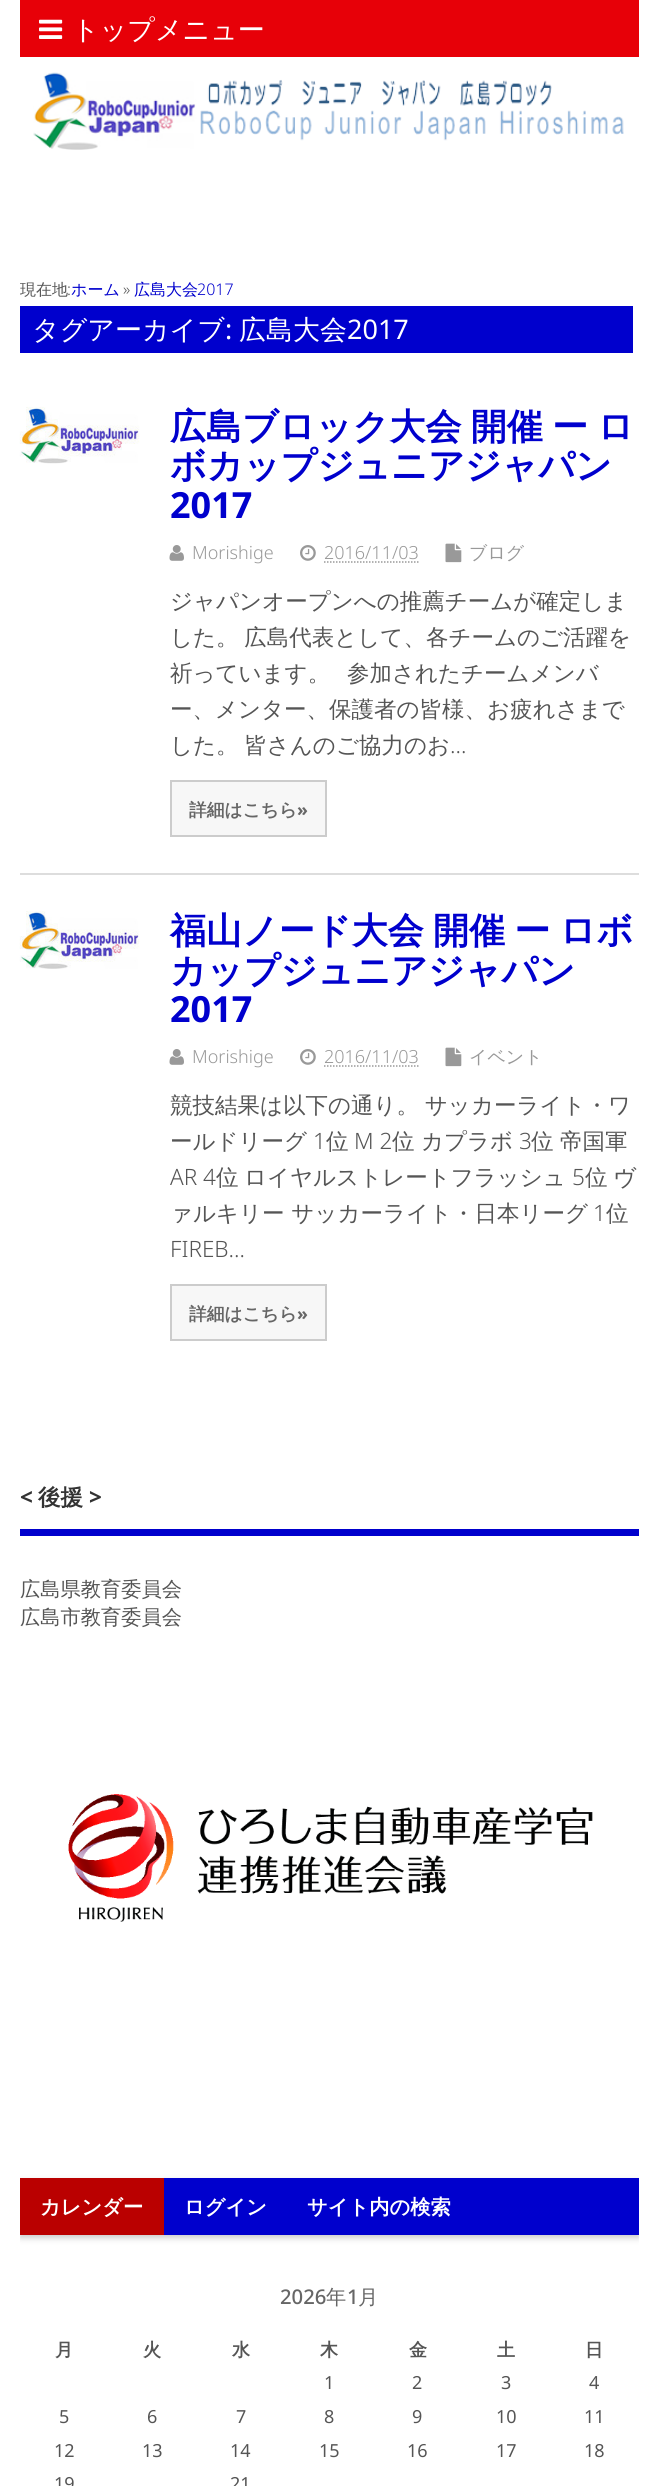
#include <cairo/cairo.h>
#include <math.h>
#include <stddef.h>


static void draw_spaced(cairo_t *cr, double x, double y, const char *s, double letter, double word) {
  cairo_move_to(cr, x, y);
  while (*s) {
    char ch[5] = {0};
    int n = 0;
    do ch[n++] = *s++; while ((*s & 0xC0) == 0x80);
    cairo_show_text(cr, ch);
    cairo_rel_move_to(cr, letter + word * (*ch == ' '), 0);
  }
}

static void rounded_rect(cairo_t *cr, double x, double y, double w, double h, double r) {
  cairo_new_sub_path(cr);
  cairo_arc(cr, x + w - r, y + h - r, r, 0, M_PI / 2);
  cairo_arc(cr, x + r, y + h - r, r, M_PI / 2, M_PI);
  cairo_arc(cr, x + r, y + r, r, M_PI, 1.5 * M_PI);
  cairo_arc(cr, x + w - r, y + r, r, 1.5 * M_PI, 2 * M_PI);
  cairo_close_path(cr);
}

static void draw_shadow(cairo_t *cr, double x, double y, double w, double h, double r, double blur, double alpha) {
  cairo_push_group_with_content(cr, CAIRO_CONTENT_ALPHA);
  cairo_set_operator(cr, CAIRO_OPERATOR_SOURCE);
  for (int i = 15; i >= -15 && fmin(w, h) + blur * i / 3 > 0; i -= 2) {
    double e = blur * i / 6;
    cairo_set_source_rgba(cr, 0, 0, 0, alpha * erfc((i - 1) / 8.5) / 2);
    rounded_rect(cr, x - e, y - e, w + 2 * e, h + 2 * e, fmax(0, fmin(r + e + blur * .6, fmin(w, h) / 2 + e)));
    cairo_fill(cr);
  }
  cairo_pattern_t *soft = cairo_pop_group(cr);
  cairo_mask(cr, soft);
  cairo_pattern_destroy(soft);
}

static void draw_image(cairo_t *cr, const char *path, double x, double y, double w, double h) {
  cairo_surface_t *image = cairo_image_surface_create_from_png(path);
  cairo_save(cr);
  cairo_set_source_surface(cr, image, x, y);
  cairo_rectangle(cr, x, y, w, h);
  cairo_fill(cr);
  cairo_restore(cr);
  cairo_surface_destroy(image);
}

static void draw(cairo_t *cr) {
  cairo_set_source_rgb(cr, 1, 1, 1);
  cairo_paint(cr);
  cairo_set_source_rgb(cr, 231 / 255.0, 0, 8 / 255.0);
  cairo_rectangle(cr, 20, 0, 619, 57);
  cairo_fill(cr);
  draw_image(cr, "images/1.png", 39, 19, 24, 20);
  draw_image(cr, "images/2.png", 33, 72, 591, 78);
  cairo_set_source_rgb(cr, 0, 0, 205 / 255.0);
  cairo_rectangle(cr, 20, 306, 613, 47);
  cairo_fill(cr);
  cairo_set_source_rgb(cr, 221 / 255.0, 221 / 255.0, 221 / 255.0);
  cairo_rectangle(cr, 20, 873, 619, 2);
  cairo_fill(cr);
  draw_image(cr, "images/3.png", 19, 406, 121, 58);
  draw_image(cr, "images/4.png", 169, 545, 15, 16);
  draw_image(cr, "images/5.png", 300, 545, 16, 16);
  cairo_new_path(cr);
  cairo_move_to(cr, 324, 562);
  cairo_line_to(cr, 418.5, 562);
  cairo_set_source_rgb(cr, 153 / 255.0, 153 / 255.0, 153 / 255.0);
  cairo_set_line_width(cr, 1.5);
  cairo_set_dash(cr, (double[]){1.5, 1.5}, 2, 0);
  cairo_stroke(cr);
  draw_image(cr, "images/6.png", 445, 543, 17, 20);
  cairo_set_source_rgb(cr, 247 / 255.0, 247 / 255.0, 247 / 255.0);
  cairo_rectangle(cr, 171, 781, 155, 55);
  cairo_fill_preserve(cr);
  cairo_set_source_rgb(cr, 204 / 255.0, 204 / 255.0, 204 / 255.0);
  cairo_set_line_width(cr, 2);
  cairo_set_dash(cr, NULL, 0, 0);
  cairo_stroke(cr);
  draw_image(cr, "images/7.png", 19, 910, 121, 59);
  draw_image(cr, "images/4.png", 169, 1049, 15, 16);
  draw_image(cr, "images/5.png", 300, 1049, 16, 16);
  cairo_new_path(cr);
  cairo_move_to(cr, 324, 1066);
  cairo_line_to(cr, 418.5, 1066);
  cairo_set_source_rgb(cr, 153 / 255.0, 153 / 255.0, 153 / 255.0);
  cairo_set_line_width(cr, 1.5);
  cairo_set_dash(cr, (double[]){1.5, 1.5}, 2, 0);
  cairo_stroke(cr);
  draw_image(cr, "images/6.png", 445, 1047, 17, 20);
  cairo_set_source_rgb(cr, 247 / 255.0, 247 / 255.0, 247 / 255.0);
  cairo_rectangle(cr, 171, 1285, 155, 55);
  cairo_fill_preserve(cr);
  cairo_set_source_rgb(cr, 204 / 255.0, 204 / 255.0, 204 / 255.0);
  cairo_set_line_width(cr, 2);
  cairo_set_dash(cr, NULL, 0, 0);
  cairo_stroke(cr);
  cairo_set_source_rgb(cr, 0, 0, 205 / 255.0);
  cairo_rectangle(cr, 20, 1529, 619, 7);
  cairo_fill(cr);
  draw_image(cr, "images/8.png", 68, 1794, 525, 128);
  cairo_save(cr);
  cairo_rectangle(cr, 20, 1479, 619, 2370);
  cairo_clip(cr);
  cairo_set_source_rgb(cr, 204 / 255.0, 204 / 255.0, 204 / 255.0);
  draw_shadow(cr, 20, 2181, 619, 57, 0, 3, 1);
  cairo_restore(cr);
  cairo_rectangle(cr, 164, 2178, 475, 57);
  cairo_fill(cr);
  cairo_set_source_rgb(cr, 186 / 255.0, 0, 0);
  cairo_rectangle(cr, 20, 2178, 144, 57);
  cairo_fill(cr);
  cairo_select_font_face(cr, "WenQuanYi Zen Hei Medium", CAIRO_FONT_SLANT_NORMAL, CAIRO_FONT_WEIGHT_NORMAL);
  cairo_set_font_size(cr, 27);
  cairo_set_source_rgb(cr, 1, 1, 1);
  cairo_move_to(cr, 72, 39);
  cairo_show_text(cr, "トップメニュー");
  cairo_set_font_size(cr, 16);
  cairo_set_source_rgb(cr, 85 / 255.0, 85 / 255.0, 85 / 255.0);
  cairo_move_to(cr, 20, 295);
  cairo_show_text(cr, "現在地");
  cairo_select_font_face(cr, "Noto Sans Light", CAIRO_FONT_SLANT_NORMAL, CAIRO_FONT_WEIGHT_NORMAL);
  cairo_move_to(cr, 67, 295);
  cairo_show_text(cr, ":");
  cairo_select_font_face(cr, "WenQuanYi Zen Hei Medium", CAIRO_FONT_SLANT_NORMAL, CAIRO_FONT_WEIGHT_NORMAL);
  cairo_set_source_rgb(cr, 0, 0, 205 / 255.0);
  cairo_move_to(cr, 71, 295);
  cairo_show_text(cr, "ホーム");
  cairo_select_font_face(cr, "Noto Sans Light", CAIRO_FONT_SLANT_NORMAL, CAIRO_FONT_WEIGHT_NORMAL);
  cairo_set_source_rgb(cr, 85 / 255.0, 85 / 255.0, 85 / 255.0);
  cairo_move_to(cr, 123, 295);
  cairo_show_text(cr, "»");
  cairo_select_font_face(cr, "WenQuanYi Zen Hei Medium", CAIRO_FONT_SLANT_NORMAL, CAIRO_FONT_WEIGHT_NORMAL);
  cairo_set_source_rgb(cr, 0, 0, 205 / 255.0);
  cairo_move_to(cr, 134, 295);
  cairo_show_text(cr, "広島大会");
  cairo_select_font_face(cr, "Noto Sans Light", CAIRO_FONT_SLANT_NORMAL, CAIRO_FONT_WEIGHT_NORMAL);
  cairo_move_to(cr, 197, 295);
  cairo_show_text(cr, "2017");
  cairo_select_font_face(cr, "WenQuanYi Zen Hei Medium", CAIRO_FONT_SLANT_NORMAL, CAIRO_FONT_WEIGHT_NORMAL);
  cairo_set_font_size(cr, 27);
  cairo_set_source_rgb(cr, 1, 1, 1);
  cairo_move_to(cr, 32, 339);
  cairo_show_text(cr, "タグアーカイブ");
  cairo_select_font_face(cr, "Noto Sans", CAIRO_FONT_SLANT_NORMAL, CAIRO_FONT_WEIGHT_NORMAL);
  cairo_move_to(cr, 225, 339);
  cairo_show_text(cr, ":");
  cairo_select_font_face(cr, "WenQuanYi Zen Hei Medium", CAIRO_FONT_SLANT_NORMAL, CAIRO_FONT_WEIGHT_NORMAL);
  cairo_move_to(cr, 239, 339);
  cairo_show_text(cr, "広島大会");
  cairo_select_font_face(cr, "Noto Sans", CAIRO_FONT_SLANT_NORMAL, CAIRO_FONT_WEIGHT_NORMAL);
  cairo_move_to(cr, 347, 339);
  cairo_show_text(cr, "2017");
  cairo_select_font_face(cr, "WenQuanYi Zen Hei", CAIRO_FONT_SLANT_NORMAL, CAIRO_FONT_WEIGHT_BOLD);
  cairo_set_font_size(cr, 36);
  cairo_set_source_rgb(cr, 0, 0, 205 / 255.0);
  draw_spaced(cr, 170, 439, "広島ブロック大会 開催 ー ロ", 0, -1.5);
  cairo_move_to(cr, 170, 478);
  cairo_show_text(cr, "ボカップジュニアジャパン");
  cairo_select_font_face(cr, "Noto Sans", CAIRO_FONT_SLANT_NORMAL, CAIRO_FONT_WEIGHT_BOLD);
  cairo_move_to(cr, 170, 518);
  cairo_show_text(cr, "2017");
  cairo_select_font_face(cr, "Noto Sans Light", CAIRO_FONT_SLANT_NORMAL, CAIRO_FONT_WEIGHT_NORMAL);
  cairo_set_font_size(cr, 18);
  cairo_set_source_rgb(cr, 153 / 255.0, 153 / 255.0, 153 / 255.0);
  cairo_move_to(cr, 192, 559);
  cairo_show_text(cr, "Morishige");
  cairo_move_to(cr, 324, 559);
  cairo_show_text(cr, "2016/11/03");
  cairo_select_font_face(cr, "WenQuanYi Zen Hei Medium", CAIRO_FONT_SLANT_NORMAL, CAIRO_FONT_WEIGHT_NORMAL);
  cairo_move_to(cr, 469, 559);
  cairo_show_text(cr, "ブログ");
  cairo_set_font_size(cr, 22.5);
  cairo_set_source_rgb(cr, 85 / 255.0, 85 / 255.0, 85 / 255.0);
  cairo_move_to(cr, 170, 609);
  cairo_show_text(cr, "ジャパンオープンへの推薦チームが確定しま");
  draw_spaced(cr, 170, 645, "した。 広島代表として、各チームのご活躍を", 0, -1);
  cairo_move_to(cr, 170, 681);
  cairo_show_text(cr, "祈っています。");
  cairo_move_to(cr, 347, 681);
  cairo_show_text(cr, "参加されたチームメンバ");
  cairo_move_to(cr, 170, 717);
  cairo_show_text(cr, "ー、メンター、保護者の皆様、お疲れさまで");
  draw_spaced(cr, 170, 753, "した。 皆さんのご協力のお", 0, -1);
  cairo_select_font_face(cr, "Noto Sans Light", CAIRO_FONT_SLANT_NORMAL, CAIRO_FONT_WEIGHT_NORMAL);
  cairo_move_to(cr, 450, 753);
  cairo_show_text(cr, "…");
  cairo_select_font_face(cr, "WenQuanYi Zen Hei", CAIRO_FONT_SLANT_NORMAL, CAIRO_FONT_WEIGHT_BOLD);
  cairo_set_font_size(cr, 17.75);
  cairo_set_source_rgb(cr, 102 / 255.0, 102 / 255.0, 102 / 255.0);
  cairo_move_to(cr, 189, 816);
  cairo_show_text(cr, "詳細はこちら");
  cairo_select_font_face(cr, "Noto Sans", CAIRO_FONT_SLANT_NORMAL, CAIRO_FONT_WEIGHT_BOLD);
  cairo_move_to(cr, 297, 816);
  cairo_show_text(cr, "»");
  cairo_select_font_face(cr, "WenQuanYi Zen Hei", CAIRO_FONT_SLANT_NORMAL, CAIRO_FONT_WEIGHT_BOLD);
  cairo_set_font_size(cr, 36);
  cairo_set_source_rgb(cr, 0, 0, 205 / 255.0);
  draw_spaced(cr, 170, 943, "福山ノード大会 開催 ー ロボ", 0, -1.5);
  cairo_move_to(cr, 170, 983);
  cairo_show_text(cr, "カップジュニアジャパン");
  cairo_select_font_face(cr, "Noto Sans", CAIRO_FONT_SLANT_NORMAL, CAIRO_FONT_WEIGHT_BOLD);
  cairo_move_to(cr, 170, 1022);
  cairo_show_text(cr, "2017");
  cairo_select_font_face(cr, "Noto Sans Light", CAIRO_FONT_SLANT_NORMAL, CAIRO_FONT_WEIGHT_NORMAL);
  cairo_set_font_size(cr, 18);
  cairo_set_source_rgb(cr, 153 / 255.0, 153 / 255.0, 153 / 255.0);
  cairo_move_to(cr, 192, 1063);
  cairo_show_text(cr, "Morishige");
  cairo_move_to(cr, 324, 1063);
  cairo_show_text(cr, "2016/11/03");
  cairo_select_font_face(cr, "WenQuanYi Zen Hei Medium", CAIRO_FONT_SLANT_NORMAL, CAIRO_FONT_WEIGHT_NORMAL);
  cairo_move_to(cr, 469, 1063);
  cairo_show_text(cr, "イベント");
  cairo_set_font_size(cr, 22.5);
  cairo_set_source_rgb(cr, 85 / 255.0, 85 / 255.0, 85 / 255.0);
  draw_spaced(cr, 170, 1113, "競技結果は以下の通り。 サッカーライト・ワ", 0, -1);
  cairo_move_to(cr, 170, 1149);
  cairo_show_text(cr, "ールドリーグ");
  cairo_select_font_face(cr, "Noto Sans Light", CAIRO_FONT_SLANT_NORMAL, CAIRO_FONT_WEIGHT_NORMAL);
  cairo_move_to(cr, 313, 1149);
  cairo_show_text(cr, "1");
  cairo_select_font_face(cr, "WenQuanYi Zen Hei Medium", CAIRO_FONT_SLANT_NORMAL, CAIRO_FONT_WEIGHT_NORMAL);
  cairo_move_to(cr, 326, 1149);
  cairo_show_text(cr, "位");
  cairo_select_font_face(cr, "Noto Sans Light", CAIRO_FONT_SLANT_NORMAL, CAIRO_FONT_WEIGHT_NORMAL);
  cairo_move_to(cr, 354, 1149);
  cairo_show_text(cr, "M 2");
  cairo_select_font_face(cr, "WenQuanYi Zen Hei Medium", CAIRO_FONT_SLANT_NORMAL, CAIRO_FONT_WEIGHT_NORMAL);
  cairo_move_to(cr, 392, 1149);
  cairo_show_text(cr, "位");
  cairo_move_to(cr, 421, 1149);
  cairo_show_text(cr, "カプラボ");
  cairo_select_font_face(cr, "Noto Sans Light", CAIRO_FONT_SLANT_NORMAL, CAIRO_FONT_WEIGHT_NORMAL);
  cairo_move_to(cr, 519, 1149);
  cairo_show_text(cr, "3");
  cairo_select_font_face(cr, "WenQuanYi Zen Hei Medium", CAIRO_FONT_SLANT_NORMAL, CAIRO_FONT_WEIGHT_NORMAL);
  cairo_move_to(cr, 531, 1149);
  cairo_show_text(cr, "位");
  cairo_move_to(cr, 560, 1149);
  cairo_show_text(cr, "帝国軍");
  cairo_select_font_face(cr, "Noto Sans Light", CAIRO_FONT_SLANT_NORMAL, CAIRO_FONT_WEIGHT_NORMAL);
  cairo_move_to(cr, 170, 1185);
  cairo_show_text(cr, "AR 4");
  cairo_select_font_face(cr, "WenQuanYi Zen Hei Medium", CAIRO_FONT_SLANT_NORMAL, CAIRO_FONT_WEIGHT_NORMAL);
  cairo_move_to(cr, 216, 1185);
  cairo_show_text(cr, "位");
  cairo_move_to(cr, 244, 1185);
  cairo_show_text(cr, "ロイヤルストレートフラッシュ");
  cairo_select_font_face(cr, "Noto Sans Light", CAIRO_FONT_SLANT_NORMAL, CAIRO_FONT_WEIGHT_NORMAL);
  cairo_move_to(cr, 572, 1185);
  cairo_show_text(cr, "5");
  cairo_select_font_face(cr, "WenQuanYi Zen Hei Medium", CAIRO_FONT_SLANT_NORMAL, CAIRO_FONT_WEIGHT_NORMAL);
  cairo_move_to(cr, 585, 1185);
  cairo_show_text(cr, "位");
  cairo_move_to(cr, 613, 1185);
  cairo_show_text(cr, "ヴ");
  cairo_move_to(cr, 170, 1221);
  cairo_show_text(cr, "ァルキリー サッカーライト・日本リーグ");
  cairo_select_font_face(cr, "Noto Sans Light", CAIRO_FONT_SLANT_NORMAL, CAIRO_FONT_WEIGHT_NORMAL);
  cairo_move_to(cr, 593, 1221);
  cairo_show_text(cr, "1");
  cairo_select_font_face(cr, "WenQuanYi Zen Hei Medium", CAIRO_FONT_SLANT_NORMAL, CAIRO_FONT_WEIGHT_NORMAL);
  cairo_move_to(cr, 606, 1221);
  cairo_show_text(cr, "位");
  cairo_select_font_face(cr, "Noto Sans Light", CAIRO_FONT_SLANT_NORMAL, CAIRO_FONT_WEIGHT_NORMAL);
  cairo_move_to(cr, 170, 1257);
  cairo_show_text(cr, "FIREB…");
  cairo_select_font_face(cr, "WenQuanYi Zen Hei", CAIRO_FONT_SLANT_NORMAL, CAIRO_FONT_WEIGHT_BOLD);
  cairo_set_font_size(cr, 17.75);
  cairo_set_source_rgb(cr, 102 / 255.0, 102 / 255.0, 102 / 255.0);
  cairo_move_to(cr, 189, 1320);
  cairo_show_text(cr, "詳細はこちら");
  cairo_select_font_face(cr, "Noto Sans", CAIRO_FONT_SLANT_NORMAL, CAIRO_FONT_WEIGHT_BOLD);
  cairo_move_to(cr, 297, 1320);
  cairo_show_text(cr, "»");
  cairo_set_font_size(cr, 22.5);
  cairo_set_source_rgb(cr, 51 / 255.0, 51 / 255.0, 51 / 255.0);
  cairo_move_to(cr, 20, 1505);
  cairo_show_text(cr, "<");
  cairo_select_font_face(cr, "WenQuanYi Zen Hei", CAIRO_FONT_SLANT_NORMAL, CAIRO_FONT_WEIGHT_BOLD);
  cairo_move_to(cr, 38, 1505);
  cairo_show_text(cr, "後援");
  cairo_select_font_face(cr, "Noto Sans", CAIRO_FONT_SLANT_NORMAL, CAIRO_FONT_WEIGHT_BOLD);
  cairo_move_to(cr, 89, 1505);
  cairo_show_text(cr, ">");
  cairo_select_font_face(cr, "WenQuanYi Zen Hei Medium", CAIRO_FONT_SLANT_NORMAL, CAIRO_FONT_WEIGHT_NORMAL);
  cairo_set_font_size(cr, 20.25);
  cairo_set_source_rgb(cr, 85 / 255.0, 85 / 255.0, 85 / 255.0);
  cairo_move_to(cr, 20, 1596);
  cairo_show_text(cr, "広島県教育委員会");
  cairo_move_to(cr, 20, 1624);
  cairo_show_text(cr, "広島市教育委員会");
  cairo_select_font_face(cr, "WenQuanYi Zen Hei", CAIRO_FONT_SLANT_NORMAL, CAIRO_FONT_WEIGHT_BOLD);
  cairo_set_source_rgb(cr, 1, 1, 1);
  cairo_move_to(cr, 40, 2214);
  cairo_show_text(cr, "カレンダー");
  cairo_move_to(cr, 184, 2214);
  cairo_show_text(cr, "ログイン");
  cairo_move_to(cr, 307, 2214);
  cairo_show_text(cr, "サイト内の検索");
  cairo_select_font_face(cr, "Noto Sans Medium", CAIRO_FONT_SLANT_NORMAL, CAIRO_FONT_WEIGHT_NORMAL);
  cairo_set_source_rgb(cr, 102 / 255.0, 102 / 255.0, 102 / 255.0);
  cairo_move_to(cr, 280, 2304);
  cairo_show_text(cr, "2026");
  cairo_select_font_face(cr, "WenQuanYi Zen Hei Medium", CAIRO_FONT_SLANT_NORMAL, CAIRO_FONT_WEIGHT_NORMAL);
  cairo_move_to(cr, 326, 2304);
  cairo_show_text(cr, "年");
  cairo_select_font_face(cr, "Noto Sans Medium", CAIRO_FONT_SLANT_NORMAL, CAIRO_FONT_WEIGHT_NORMAL);
  cairo_move_to(cr, 347, 2304);
  cairo_show_text(cr, "1");
  cairo_select_font_face(cr, "WenQuanYi Zen Hei Medium", CAIRO_FONT_SLANT_NORMAL, CAIRO_FONT_WEIGHT_NORMAL);
  cairo_move_to(cr, 358, 2304);
  cairo_show_text(cr, "月");
  cairo_select_font_face(cr, "WenQuanYi Zen Hei", CAIRO_FONT_SLANT_NORMAL, CAIRO_FONT_WEIGHT_BOLD);
  cairo_set_font_size(cr, 18);
  cairo_set_source_rgb(cr, 85 / 255.0, 85 / 255.0, 85 / 255.0);
  cairo_move_to(cr, 55, 2356);
  cairo_show_text(cr, "月");
  cairo_move_to(cr, 143, 2356);
  cairo_show_text(cr, "火");
  cairo_move_to(cr, 232, 2356);
  cairo_show_text(cr, "水");
  cairo_move_to(cr, 320, 2356);
  cairo_show_text(cr, "木");
  cairo_move_to(cr, 409, 2356);
  cairo_show_text(cr, "金");
  cairo_move_to(cr, 497, 2356);
  cairo_show_text(cr, "土");
  cairo_move_to(cr, 585, 2356);
  cairo_show_text(cr, "日");
  cairo_select_font_face(cr, "Noto Sans", CAIRO_FONT_SLANT_NORMAL, CAIRO_FONT_WEIGHT_NORMAL);
  cairo_move_to(cr, 324, 2389);
  cairo_show_text(cr, "1");
  cairo_move_to(cr, 412, 2389);
  cairo_show_text(cr, "2");
  cairo_move_to(cr, 501, 2389);
  cairo_show_text(cr, "3");
  cairo_move_to(cr, 589, 2389);
  cairo_show_text(cr, "4");
  cairo_move_to(cr, 59, 2423);
  cairo_show_text(cr, "5");
  cairo_move_to(cr, 147, 2423);
  cairo_show_text(cr, "6");
  cairo_move_to(cr, 236, 2423);
  cairo_show_text(cr, "7");
  cairo_move_to(cr, 324, 2423);
  cairo_show_text(cr, "8");
  cairo_move_to(cr, 412, 2423);
  cairo_show_text(cr, "9");
  cairo_move_to(cr, 496, 2423);
  cairo_show_text(cr, "10");
  cairo_move_to(cr, 584, 2423);
  cairo_show_text(cr, "11");
  cairo_move_to(cr, 54, 2457);
  cairo_show_text(cr, "12");
  cairo_move_to(cr, 142, 2457);
  cairo_show_text(cr, "13");
  cairo_move_to(cr, 230, 2457);
  cairo_show_text(cr, "14");
  cairo_move_to(cr, 319, 2457);
  cairo_show_text(cr, "15");
  cairo_move_to(cr, 407, 2457);
  cairo_show_text(cr, "16");
  cairo_move_to(cr, 496, 2457);
  cairo_show_text(cr, "17");
  cairo_move_to(cr, 584, 2457);
  cairo_show_text(cr, "18");
  cairo_move_to(cr, 54, 2490);
  cairo_show_text(cr, "19");
  cairo_move_to(cr, 230, 2490);
  cairo_show_text(cr, "21");
}

int main(void) {
  cairo_surface_t *surface = cairo_image_surface_create(CAIRO_FORMAT_RGB24, 658, 2486);
  cairo_t *cr = cairo_create(surface);
  cairo_font_options_t *options = cairo_font_options_create();
  cairo_font_options_set_hint_metrics(options, CAIRO_HINT_METRICS_OFF);
  cairo_font_options_set_hint_style(options, CAIRO_HINT_STYLE_NONE);
  cairo_set_font_options(cr, options);
  cairo_set_miter_limit(cr, 4);
  draw(cr);
  cairo_surface_write_to_png(surface, "out.png");
  cairo_font_options_destroy(options);
  cairo_destroy(cr);
  cairo_surface_destroy(surface);
  return 0;
}
